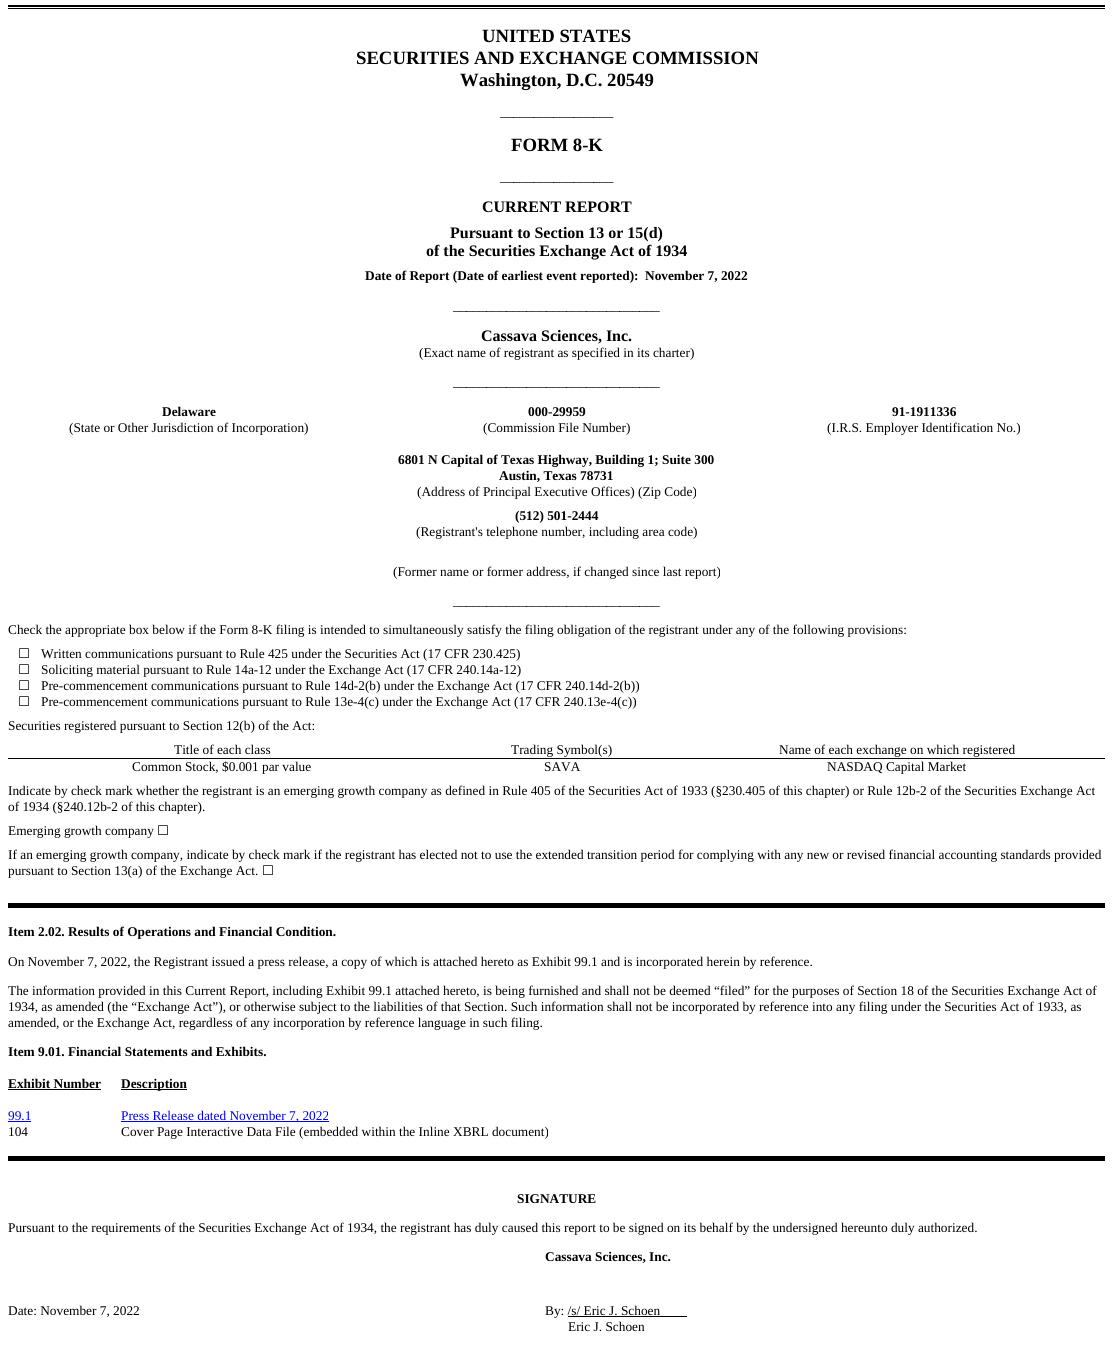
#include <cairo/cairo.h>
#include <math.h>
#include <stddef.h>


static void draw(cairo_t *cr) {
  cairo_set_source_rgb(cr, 1, 1, 1);
  cairo_paint(cr);
  cairo_set_source_rgb(cr, 0, 0, 0);
  cairo_rectangle(cr, 8, 5, 1097, 2);
  cairo_fill(cr);
  cairo_rectangle(cr, 8, 8, 1097, 1);
  cairo_fill(cr);
  cairo_rectangle(cr, 8, 758, 1097, 1);
  cairo_fill(cr);
  cairo_rectangle(cr, 8, 903, 1097, 5);
  cairo_fill(cr);
  cairo_rectangle(cr, 8, 1089, 93, 1);
  cairo_fill(cr);
  cairo_rectangle(cr, 121, 1089, 66, 1);
  cairo_fill(cr);
  cairo_set_source_rgb(cr, 0, 0, 238 / 255.0);
  cairo_rectangle(cr, 8, 1121, 23, 1);
  cairo_fill(cr);
  cairo_rectangle(cr, 121, 1121, 208, 1);
  cairo_fill(cr);
  cairo_set_source_rgb(cr, 0, 0, 0);
  cairo_rectangle(cr, 8, 1156, 1097, 5);
  cairo_fill(cr);
  cairo_rectangle(cr, 568, 1316, 119, 1);
  cairo_fill(cr);
  cairo_select_font_face(cr, "Liberation Serif", CAIRO_FONT_SLANT_NORMAL, CAIRO_FONT_WEIGHT_BOLD);
  cairo_set_font_size(cr, 18.7);
  cairo_move_to(cr, 482, 42);
  cairo_show_text(cr, "UNITED STATES");
  cairo_move_to(cr, 356, 64);
  cairo_show_text(cr, "SECURITIES AND EXCHANGE COMMISSION");
  cairo_move_to(cr, 460, 86);
  cairo_show_text(cr, "Washington, D.C. 20549");
  cairo_select_font_face(cr, "Liberation Serif", CAIRO_FONT_SLANT_NORMAL, CAIRO_FONT_WEIGHT_NORMAL);
  cairo_set_font_size(cr, 13.33);
  cairo_move_to(cr, 500, 116);
  cairo_show_text(cr, "_________________");
  cairo_select_font_face(cr, "Liberation Serif", CAIRO_FONT_SLANT_NORMAL, CAIRO_FONT_WEIGHT_BOLD);
  cairo_set_font_size(cr, 18.7);
  cairo_move_to(cr, 511, 151);
  cairo_show_text(cr, "FORM 8-K");
  cairo_select_font_face(cr, "Liberation Serif", CAIRO_FONT_SLANT_NORMAL, CAIRO_FONT_WEIGHT_NORMAL);
  cairo_set_font_size(cr, 13.33);
  cairo_move_to(cr, 500, 181);
  cairo_show_text(cr, "_________________");
  cairo_select_font_face(cr, "Liberation Serif", CAIRO_FONT_SLANT_NORMAL, CAIRO_FONT_WEIGHT_BOLD);
  cairo_set_font_size(cr, 16);
  cairo_move_to(cr, 482, 212);
  cairo_show_text(cr, "CURRENT REPORT");
  cairo_move_to(cr, 450, 238);
  cairo_show_text(cr, "Pursuant to Section 13 or 15(d)");
  cairo_move_to(cr, 426, 256);
  cairo_show_text(cr, "of the Securities Exchange Act of 1934");
  cairo_set_font_size(cr, 13.33);
  cairo_move_to(cr, 365, 280);
  cairo_show_text(cr, "Date of Report (Date of earliest event reported):");
  cairo_move_to(cr, 645, 280);
  cairo_show_text(cr, "November 7, 2022");
  cairo_select_font_face(cr, "Liberation Serif", CAIRO_FONT_SLANT_NORMAL, CAIRO_FONT_WEIGHT_NORMAL);
  cairo_move_to(cr, 453, 310);
  cairo_show_text(cr, "_______________________________");
  cairo_select_font_face(cr, "Liberation Serif", CAIRO_FONT_SLANT_NORMAL, CAIRO_FONT_WEIGHT_BOLD);
  cairo_set_font_size(cr, 16);
  cairo_move_to(cr, 481, 341);
  cairo_show_text(cr, "Cassava Sciences, Inc.");
  cairo_select_font_face(cr, "Liberation Serif", CAIRO_FONT_SLANT_NORMAL, CAIRO_FONT_WEIGHT_NORMAL);
  cairo_set_font_size(cr, 13.33);
  cairo_move_to(cr, 419, 357);
  cairo_show_text(cr, "(Exact name of registrant as specified in its charter)");
  cairo_move_to(cr, 453, 386);
  cairo_show_text(cr, "_______________________________");
  cairo_select_font_face(cr, "Liberation Serif", CAIRO_FONT_SLANT_NORMAL, CAIRO_FONT_WEIGHT_BOLD);
  cairo_move_to(cr, 162, 416);
  cairo_show_text(cr, "Delaware");
  cairo_move_to(cr, 528, 416);
  cairo_show_text(cr, "000-29959");
  cairo_move_to(cr, 892, 416);
  cairo_show_text(cr, "91-1911336");
  cairo_select_font_face(cr, "Liberation Serif", CAIRO_FONT_SLANT_NORMAL, CAIRO_FONT_WEIGHT_NORMAL);
  cairo_move_to(cr, 69, 432);
  cairo_show_text(cr, "(State or Other Jurisdiction of Incorporation)");
  cairo_move_to(cr, 483, 432);
  cairo_show_text(cr, "(Commission File Number)");
  cairo_move_to(cr, 827, 432);
  cairo_show_text(cr, "(I.R.S. Employer Identification No.)");
  cairo_select_font_face(cr, "Liberation Serif", CAIRO_FONT_SLANT_NORMAL, CAIRO_FONT_WEIGHT_BOLD);
  cairo_move_to(cr, 398, 464);
  cairo_show_text(cr, "6801 N Capital of Texas Highway, Building 1; Suite 300");
  cairo_move_to(cr, 499, 480);
  cairo_show_text(cr, "Austin, Texas 78731");
  cairo_select_font_face(cr, "Liberation Serif", CAIRO_FONT_SLANT_NORMAL, CAIRO_FONT_WEIGHT_NORMAL);
  cairo_move_to(cr, 417, 496);
  cairo_show_text(cr, "(Address of Principal Executive Offices) (Zip Code)");
  cairo_select_font_face(cr, "Liberation Serif", CAIRO_FONT_SLANT_NORMAL, CAIRO_FONT_WEIGHT_BOLD);
  cairo_move_to(cr, 515, 520);
  cairo_show_text(cr, "(512) 501-2444");
  cairo_select_font_face(cr, "Liberation Serif", CAIRO_FONT_SLANT_NORMAL, CAIRO_FONT_WEIGHT_NORMAL);
  cairo_move_to(cr, 416, 536);
  cairo_show_text(cr, "(Registrant's telephone number, including area code)");
  cairo_move_to(cr, 393, 576);
  cairo_show_text(cr, "(Former name or former address, if changed since last report)");
  cairo_move_to(cr, 453, 605);
  cairo_show_text(cr, "_______________________________");
  cairo_move_to(cr, 8, 634);
  cairo_show_text(cr, "Check the appropriate box below if the Form 8-K filing is intended to simultaneously satisfy the filing obligation of the registrant under any of the following provisions:");
  cairo_select_font_face(cr, "DejaVu Sans", CAIRO_FONT_SLANT_NORMAL, CAIRO_FONT_WEIGHT_NORMAL);
  cairo_move_to(cr, 18, 658);
  cairo_show_text(cr, "☐");
  cairo_select_font_face(cr, "Liberation Serif", CAIRO_FONT_SLANT_NORMAL, CAIRO_FONT_WEIGHT_NORMAL);
  cairo_move_to(cr, 41, 658);
  cairo_show_text(cr, "Written communications pursuant to Rule 425 under the Securities Act (17 CFR 230.425)");
  cairo_select_font_face(cr, "DejaVu Sans", CAIRO_FONT_SLANT_NORMAL, CAIRO_FONT_WEIGHT_NORMAL);
  cairo_move_to(cr, 18, 674);
  cairo_show_text(cr, "☐");
  cairo_select_font_face(cr, "Liberation Serif", CAIRO_FONT_SLANT_NORMAL, CAIRO_FONT_WEIGHT_NORMAL);
  cairo_move_to(cr, 41, 674);
  cairo_show_text(cr, "Soliciting material pursuant to Rule 14a-12 under the Exchange Act (17 CFR 240.14a-12)");
  cairo_select_font_face(cr, "DejaVu Sans", CAIRO_FONT_SLANT_NORMAL, CAIRO_FONT_WEIGHT_NORMAL);
  cairo_move_to(cr, 18, 690);
  cairo_show_text(cr, "☐");
  cairo_select_font_face(cr, "Liberation Serif", CAIRO_FONT_SLANT_NORMAL, CAIRO_FONT_WEIGHT_NORMAL);
  cairo_move_to(cr, 41, 690);
  cairo_show_text(cr, "Pre-commencement communications pursuant to Rule 14d-2(b) under the Exchange Act (17 CFR 240.14d-2(b))");
  cairo_select_font_face(cr, "DejaVu Sans", CAIRO_FONT_SLANT_NORMAL, CAIRO_FONT_WEIGHT_NORMAL);
  cairo_move_to(cr, 18, 706);
  cairo_show_text(cr, "☐");
  cairo_select_font_face(cr, "Liberation Serif", CAIRO_FONT_SLANT_NORMAL, CAIRO_FONT_WEIGHT_NORMAL);
  cairo_move_to(cr, 41, 706);
  cairo_show_text(cr, "Pre-commencement communications pursuant to Rule 13e-4(c) under the Exchange Act (17 CFR 240.13e-4(c))");
  cairo_move_to(cr, 8, 730);
  cairo_show_text(cr, "Securities registered pursuant to Section 12(b) of the Act:");
  cairo_move_to(cr, 174, 754);
  cairo_show_text(cr, "Title of each class");
  cairo_move_to(cr, 511, 754);
  cairo_show_text(cr, "Trading Symbol(s)");
  cairo_move_to(cr, 779, 754);
  cairo_show_text(cr, "Name of each exchange on which registered");
  cairo_move_to(cr, 132, 771);
  cairo_show_text(cr, "Common Stock, $0.001 par value");
  cairo_move_to(cr, 544, 771);
  cairo_show_text(cr, "SAVA");
  cairo_move_to(cr, 827, 771);
  cairo_show_text(cr, "NASDAQ Capital Market");
  cairo_move_to(cr, 8, 795);
  cairo_show_text(cr, "Indicate by check mark whether the registrant is an emerging growth company as defined in Rule 405 of the Securities Act of 1933 (§230.405 of this chapter) or Rule 12b-2 of the Securities Exchange Act");
  cairo_move_to(cr, 8, 811);
  cairo_show_text(cr, "of 1934 (§240.12b-2 of this chapter).");
  cairo_move_to(cr, 8, 835);
  cairo_show_text(cr, "Emerging growth company");
  cairo_select_font_face(cr, "DejaVu Sans", CAIRO_FONT_SLANT_NORMAL, CAIRO_FONT_WEIGHT_NORMAL);
  cairo_move_to(cr, 157, 835);
  cairo_show_text(cr, "☐");
  cairo_select_font_face(cr, "Liberation Serif", CAIRO_FONT_SLANT_NORMAL, CAIRO_FONT_WEIGHT_NORMAL);
  cairo_move_to(cr, 8, 859);
  cairo_show_text(cr, "If an emerging growth company, indicate by check mark if the registrant has elected not to use the extended transition period for complying with any new or revised financial accounting standards provided");
  cairo_move_to(cr, 8, 875);
  cairo_show_text(cr, "pursuant to Section 13(a) of the Exchange Act.");
  cairo_select_font_face(cr, "DejaVu Sans", CAIRO_FONT_SLANT_NORMAL, CAIRO_FONT_WEIGHT_NORMAL);
  cairo_move_to(cr, 262, 875);
  cairo_show_text(cr, "☐");
  cairo_select_font_face(cr, "Liberation Serif", CAIRO_FONT_SLANT_NORMAL, CAIRO_FONT_WEIGHT_BOLD);
  cairo_move_to(cr, 8, 936);
  cairo_show_text(cr, "Item 2.02. Results of Operations and Financial Condition.");
  cairo_select_font_face(cr, "Liberation Serif", CAIRO_FONT_SLANT_NORMAL, CAIRO_FONT_WEIGHT_NORMAL);
  cairo_move_to(cr, 8, 966);
  cairo_show_text(cr, "On November 7, 2022, the Registrant issued a press release, a copy of which is attached hereto as Exhibit 99.1 and is incorporated herein by reference.");
  cairo_move_to(cr, 8, 995);
  cairo_show_text(cr, "The information provided in this Current Report, including Exhibit 99.1 attached hereto, is being furnished and shall not be deemed “filed” for the purposes of Section 18 of the Securities Exchange Act of");
  cairo_move_to(cr, 8, 1011);
  cairo_show_text(cr, "1934, as amended (the “Exchange Act”), or otherwise subject to the liabilities of that Section. Such information shall not be incorporated by reference into any filing under the Securities Act of 1933, as");
  cairo_move_to(cr, 8, 1027);
  cairo_show_text(cr, "amended, or the Exchange Act, regardless of any incorporation by reference language in such filing.");
  cairo_select_font_face(cr, "Liberation Serif", CAIRO_FONT_SLANT_NORMAL, CAIRO_FONT_WEIGHT_BOLD);
  cairo_move_to(cr, 8, 1056);
  cairo_show_text(cr, "Item 9.01. Financial Statements and Exhibits.");
  cairo_move_to(cr, 8, 1088);
  cairo_show_text(cr, "Exhibit Number");
  cairo_move_to(cr, 121, 1088);
  cairo_show_text(cr, "Description");
  cairo_select_font_face(cr, "Liberation Serif", CAIRO_FONT_SLANT_NORMAL, CAIRO_FONT_WEIGHT_NORMAL);
  cairo_set_source_rgb(cr, 0, 0, 238 / 255.0);
  cairo_move_to(cr, 8, 1120);
  cairo_show_text(cr, "99.1");
  cairo_move_to(cr, 121, 1120);
  cairo_show_text(cr, "Press Release dated November 7, 2022");
  cairo_set_source_rgb(cr, 0, 0, 0);
  cairo_move_to(cr, 8, 1136);
  cairo_show_text(cr, "104");
  cairo_move_to(cr, 121, 1136);
  cairo_show_text(cr, "Cover Page Interactive Data File (embedded within the Inline XBRL document)");
  cairo_select_font_face(cr, "Liberation Serif", CAIRO_FONT_SLANT_NORMAL, CAIRO_FONT_WEIGHT_BOLD);
  cairo_move_to(cr, 517, 1203);
  cairo_show_text(cr, "SIGNATURE");
  cairo_select_font_face(cr, "Liberation Serif", CAIRO_FONT_SLANT_NORMAL, CAIRO_FONT_WEIGHT_NORMAL);
  cairo_move_to(cr, 8, 1232);
  cairo_show_text(cr, "Pursuant to the requirements of the Securities Exchange Act of 1934, the registrant has duly caused this report to be signed on its behalf by the undersigned hereunto duly authorized.");
  cairo_select_font_face(cr, "Liberation Serif", CAIRO_FONT_SLANT_NORMAL, CAIRO_FONT_WEIGHT_BOLD);
  cairo_move_to(cr, 545, 1261);
  cairo_show_text(cr, "Cassava Sciences, Inc.");
  cairo_select_font_face(cr, "Liberation Serif", CAIRO_FONT_SLANT_NORMAL, CAIRO_FONT_WEIGHT_NORMAL);
  cairo_move_to(cr, 8, 1315);
  cairo_show_text(cr, "Date: November 7, 2022");
  cairo_move_to(cr, 545, 1315);
  cairo_show_text(cr, "By: /s/ Eric J. Schoen");
  cairo_move_to(cr, 568, 1331);
  cairo_show_text(cr, "Eric J. Schoen");
}

int main(void) {
  cairo_surface_t *surface = cairo_image_surface_create(CAIRO_FORMAT_RGB24, 1113, 1346);
  cairo_t *cr = cairo_create(surface);
  cairo_font_options_t *options = cairo_font_options_create();
  cairo_font_options_set_hint_metrics(options, CAIRO_HINT_METRICS_OFF);
  cairo_font_options_set_hint_style(options, CAIRO_HINT_STYLE_NONE);
  cairo_set_font_options(cr, options);
  cairo_set_miter_limit(cr, 4);
  draw(cr);
  cairo_surface_write_to_png(surface, "out.png");
  cairo_font_options_destroy(options);
  cairo_destroy(cr);
  cairo_surface_destroy(surface);
  return 0;
}
